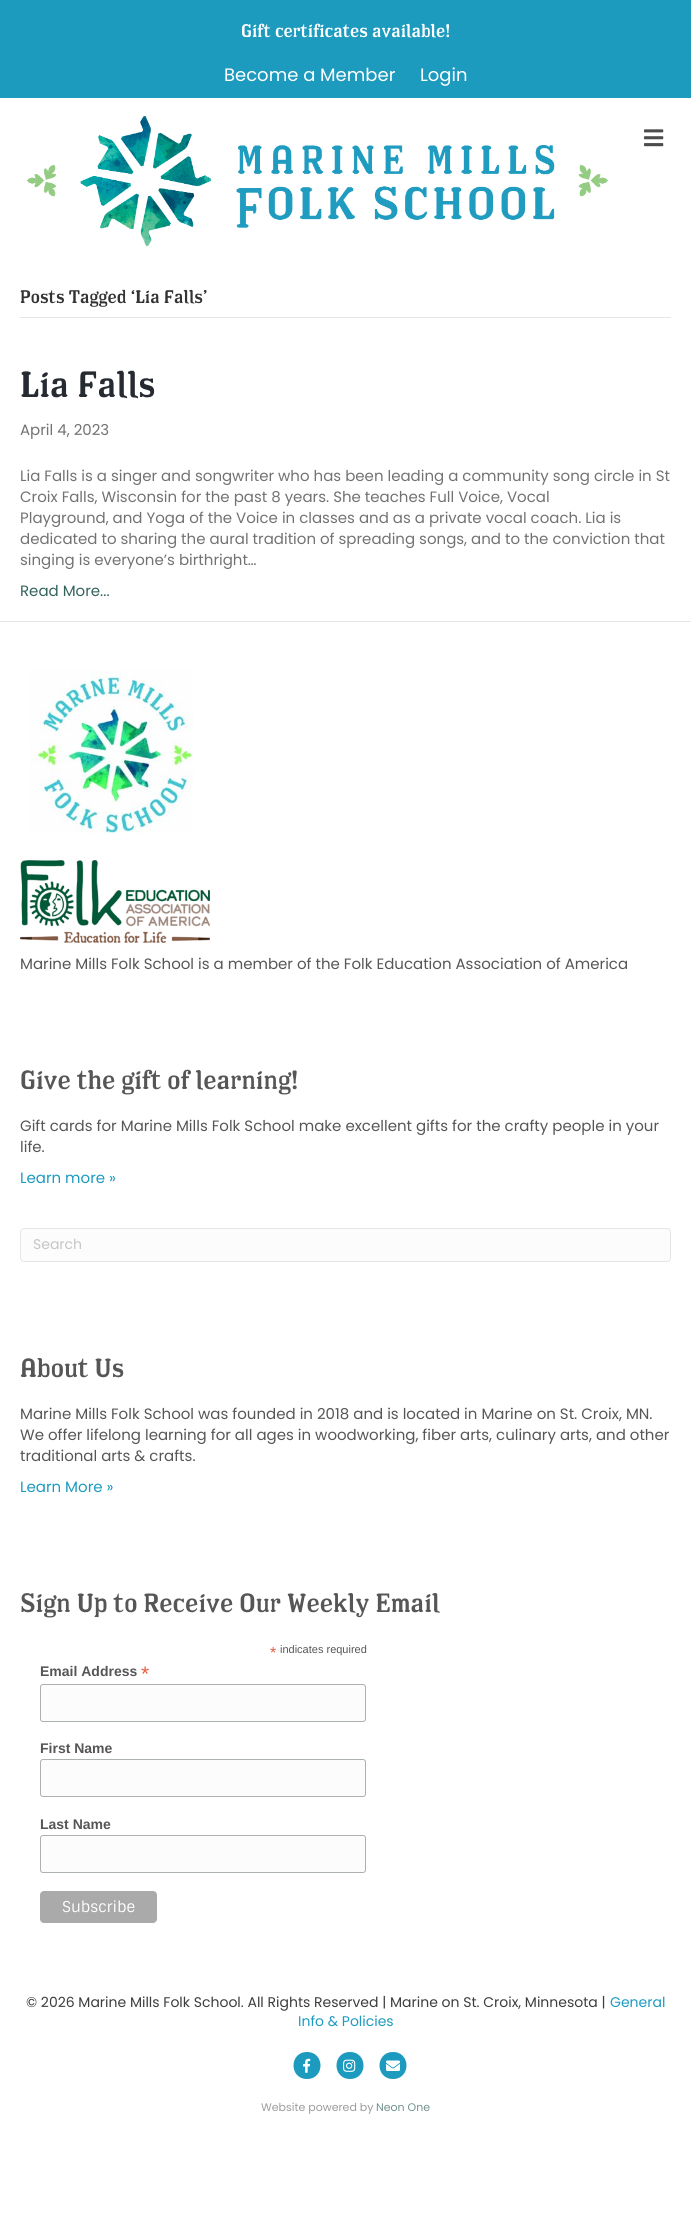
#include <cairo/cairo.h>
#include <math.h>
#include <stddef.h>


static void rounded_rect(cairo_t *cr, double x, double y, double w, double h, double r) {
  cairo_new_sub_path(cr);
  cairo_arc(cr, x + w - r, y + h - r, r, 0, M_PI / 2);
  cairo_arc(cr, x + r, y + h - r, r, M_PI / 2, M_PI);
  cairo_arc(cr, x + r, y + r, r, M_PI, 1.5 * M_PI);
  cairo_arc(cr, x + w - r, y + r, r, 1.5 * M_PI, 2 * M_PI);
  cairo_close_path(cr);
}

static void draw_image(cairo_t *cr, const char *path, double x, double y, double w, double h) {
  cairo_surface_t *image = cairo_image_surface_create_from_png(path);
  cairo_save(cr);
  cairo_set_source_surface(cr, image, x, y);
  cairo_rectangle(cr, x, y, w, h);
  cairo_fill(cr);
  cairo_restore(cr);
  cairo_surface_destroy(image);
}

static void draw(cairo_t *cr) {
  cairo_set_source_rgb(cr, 1, 1, 1);
  cairo_paint(cr);
  cairo_set_source_rgb(cr, 29 / 255.0, 155 / 255.0, 191 / 255.0);
  cairo_rectangle(cr, 0, 0, 691, 98);
  cairo_fill(cr);
  draw_image(cr, "images/1.png", 27, 116, 581, 131);
  draw_image(cr, "images/2.png", 644, 129, 20, 18);
  cairo_set_source_rgb(cr, 230 / 255.0, 230 / 255.0, 230 / 255.0);
  cairo_rectangle(cr, 20, 317, 651, 1);
  cairo_fill(cr);
  cairo_rectangle(cr, 0, 621, 691, 1);
  cairo_fill(cr);
  draw_image(cr, "images/3.png", 30, 670, 163, 163);
  draw_image(cr, "images/4.png", 20, 860, 190, 83);
  cairo_set_source_rgb(cr, 252 / 255.0, 252 / 255.0, 252 / 255.0);
  rounded_rect(cr, 20.5, 1228.5, 650, 33, 3.5);
  cairo_fill_preserve(cr);
  cairo_set_source_rgb(cr, 230 / 255.0, 230 / 255.0, 230 / 255.0);
  cairo_set_line_width(cr, 1);
  cairo_stroke(cr);
  cairo_set_source_rgb(cr, 252 / 255.0, 252 / 255.0, 252 / 255.0);
  rounded_rect(cr, 40.5, 1684.5, 325, 37, 2.5);
  cairo_fill_preserve(cr);
  cairo_set_source_rgb(cr, 171 / 255.0, 176 / 255.0, 178 / 255.0);
  cairo_stroke(cr);
  cairo_set_source_rgb(cr, 252 / 255.0, 252 / 255.0, 252 / 255.0);
  rounded_rect(cr, 40.5, 1759.5, 325, 37, 2.5);
  cairo_fill_preserve(cr);
  cairo_set_source_rgb(cr, 171 / 255.0, 176 / 255.0, 178 / 255.0);
  cairo_stroke(cr);
  cairo_set_source_rgb(cr, 252 / 255.0, 252 / 255.0, 252 / 255.0);
  rounded_rect(cr, 40.5, 1835.5, 325, 37, 2.5);
  cairo_fill_preserve(cr);
  cairo_set_source_rgb(cr, 171 / 255.0, 176 / 255.0, 178 / 255.0);
  cairo_stroke(cr);
  cairo_set_source_rgb(cr, 170 / 255.0, 170 / 255.0, 170 / 255.0);
  rounded_rect(cr, 40, 1891, 117, 32, 4);
  cairo_fill(cr);
  cairo_set_source_rgb(cr, 29 / 255.0, 155 / 255.0, 191 / 255.0);
  cairo_new_path(cr);
  cairo_move_to(cr, 307, 2052);
  cairo_curve_to(cr, 289, 2052, 289, 2079, 307, 2079);
  cairo_curve_to(cr, 325, 2079, 325, 2052, 307, 2052);
  cairo_close_path(cr);
  cairo_fill(cr);
  draw_image(cr, "images/5.png", 303, 2058, 8, 15);
  cairo_new_path(cr);
  cairo_move_to(cr, 350, 2052);
  cairo_curve_to(cr, 332, 2052, 332, 2079, 350, 2079);
  cairo_curve_to(cr, 368, 2079, 368, 2052, 350, 2052);
  cairo_close_path(cr);
  cairo_fill(cr);
  draw_image(cr, "images/6.png", 343, 2059, 13, 13);
  cairo_new_path(cr);
  cairo_move_to(cr, 393, 2052);
  cairo_curve_to(cr, 375, 2052, 375, 2079, 393, 2079);
  cairo_curve_to(cr, 411, 2079, 411, 2052, 393, 2052);
  cairo_close_path(cr);
  cairo_fill(cr);
  draw_image(cr, "images/7.png", 386, 2060, 14, 11);
  cairo_select_font_face(cr, "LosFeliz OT", CAIRO_FONT_SLANT_NORMAL, CAIRO_FONT_WEIGHT_NORMAL);
  cairo_set_font_size(cr, 18);
  cairo_set_source_rgb(cr, 1, 1, 1);
  cairo_move_to(cr, 241, 37);
  cairo_show_text(cr, "Gift certificates available!");
  cairo_select_font_face(cr, "Poppins", CAIRO_FONT_SLANT_NORMAL, CAIRO_FONT_WEIGHT_NORMAL);
  cairo_move_to(cr, 224, 81);
  cairo_show_text(cr, "Become a Member");
  cairo_move_to(cr, 420, 81);
  cairo_show_text(cr, "Login");
  cairo_select_font_face(cr, "LosFeliz OT", CAIRO_FONT_SLANT_NORMAL, CAIRO_FONT_WEIGHT_NORMAL);
  cairo_set_source_rgb(cr, 51 / 255.0, 51 / 255.0, 51 / 255.0);
  cairo_move_to(cr, 20, 303);
  cairo_show_text(cr, "Posts Tagged ‘Lia Falls’");
  cairo_set_font_size(cr, 36);
  cairo_set_source_rgb(cr, 38 / 255.0, 42 / 255.0, 49 / 255.0);
  cairo_move_to(cr, 20, 397);
  cairo_show_text(cr, "Lia Falls");
  cairo_select_font_face(cr, "Poppins", CAIRO_FONT_SLANT_NORMAL, CAIRO_FONT_WEIGHT_NORMAL);
  cairo_set_font_size(cr, 15);
  cairo_set_source_rgb(cr, 114 / 255.0, 114 / 255.0, 114 / 255.0);
  cairo_move_to(cr, 20, 435);
  cairo_show_text(cr, "April 4, 2023");
  cairo_move_to(cr, 20, 481);
  cairo_show_text(cr, "Lia Falls is a singer and songwriter who has been leading a community song circle in St");
  cairo_move_to(cr, 20, 502);
  cairo_show_text(cr, "Croix Falls, Wisconsin for the past 8 years. She teaches Full Voice, Vocal");
  cairo_move_to(cr, 20, 523);
  cairo_show_text(cr, "Playground, and Yoga of the Voice in classes and as a private vocal coach. Lia is");
  cairo_move_to(cr, 20, 544);
  cairo_show_text(cr, "dedicated to sharing the aural tradition of spreading songs, and to the conviction that");
  cairo_move_to(cr, 20, 565);
  cairo_show_text(cr, "singing is everyone’s birthright…");
  cairo_set_source_rgb(cr, 52 / 255.0, 99 / 255.0, 93 / 255.0);
  cairo_move_to(cr, 20, 596);
  cairo_show_text(cr, "Read More...");
  cairo_set_source_rgb(cr, 86 / 255.0, 86 / 255.0, 86 / 255.0);
  cairo_move_to(cr, 20, 969);
  cairo_show_text(cr, "Marine Mills Folk School is a member of the Folk Education Association of America");
  cairo_select_font_face(cr, "LosFeliz OT", CAIRO_FONT_SLANT_NORMAL, CAIRO_FONT_WEIGHT_NORMAL);
  cairo_set_font_size(cr, 26);
  cairo_move_to(cr, 20, 1089);
  cairo_show_text(cr, "Give the gift of learning!");
  cairo_select_font_face(cr, "Poppins", CAIRO_FONT_SLANT_NORMAL, CAIRO_FONT_WEIGHT_NORMAL);
  cairo_set_font_size(cr, 15);
  cairo_move_to(cr, 20, 1131);
  cairo_show_text(cr, "Gift cards for Marine Mills Folk School make excellent gifts for the crafty people in your");
  cairo_move_to(cr, 20, 1152);
  cairo_show_text(cr, "life.");
  cairo_set_source_rgb(cr, 29 / 255.0, 155 / 255.0, 191 / 255.0);
  cairo_move_to(cr, 20, 1183);
  cairo_show_text(cr, "Learn more »");
  cairo_set_font_size(cr, 14);
  cairo_set_source_rgb(cr, 197 / 255.0, 197 / 255.0, 197 / 255.0);
  cairo_move_to(cr, 33, 1249);
  cairo_show_text(cr, "Search");
  cairo_select_font_face(cr, "LosFeliz OT", CAIRO_FONT_SLANT_NORMAL, CAIRO_FONT_WEIGHT_NORMAL);
  cairo_set_font_size(cr, 26);
  cairo_set_source_rgb(cr, 86 / 255.0, 86 / 255.0, 86 / 255.0);
  cairo_move_to(cr, 20, 1377);
  cairo_show_text(cr, "About Us");
  cairo_select_font_face(cr, "Poppins", CAIRO_FONT_SLANT_NORMAL, CAIRO_FONT_WEIGHT_NORMAL);
  cairo_set_font_size(cr, 15);
  cairo_move_to(cr, 20, 1419);
  cairo_show_text(cr, "Marine Mills Folk School was founded in 2018 and is located in Marine on St. Croix, MN.");
  cairo_move_to(cr, 20, 1440);
  cairo_show_text(cr, "We offer lifelong learning for all ages in woodworking, fiber arts, culinary arts, and other");
  cairo_move_to(cr, 20, 1461);
  cairo_show_text(cr, "traditional arts & crafts.");
  cairo_set_source_rgb(cr, 29 / 255.0, 155 / 255.0, 191 / 255.0);
  cairo_move_to(cr, 20, 1492);
  cairo_show_text(cr, "Learn More »");
  cairo_select_font_face(cr, "LosFeliz OT", CAIRO_FONT_SLANT_NORMAL, CAIRO_FONT_WEIGHT_NORMAL);
  cairo_set_font_size(cr, 26);
  cairo_set_source_rgb(cr, 86 / 255.0, 86 / 255.0, 86 / 255.0);
  cairo_move_to(cr, 20, 1612);
  cairo_show_text(cr, "Sign Up to Receive Our Weekly Email");
  cairo_select_font_face(cr, "Liberation Sans", CAIRO_FONT_SLANT_NORMAL, CAIRO_FONT_WEIGHT_NORMAL);
  cairo_set_font_size(cr, 16);
  cairo_set_source_rgb(cr, 232 / 255.0, 92 / 255.0, 65 / 255.0);
  cairo_move_to(cr, 270, 1658);
  cairo_show_text(cr, "*");
  cairo_set_font_size(cr, 11);
  cairo_set_source_rgb(cr, 86 / 255.0, 86 / 255.0, 86 / 255.0);
  cairo_move_to(cr, 280, 1653);
  cairo_show_text(cr, "indicates required");
  cairo_select_font_face(cr, "Liberation Sans", CAIRO_FONT_SLANT_NORMAL, CAIRO_FONT_WEIGHT_BOLD);
  cairo_set_font_size(cr, 14);
  cairo_move_to(cr, 40, 1676);
  cairo_show_text(cr, "Email Address");
  cairo_select_font_face(cr, "Liberation Sans", CAIRO_FONT_SLANT_NORMAL, CAIRO_FONT_WEIGHT_NORMAL);
  cairo_set_font_size(cr, 21);
  cairo_set_source_rgb(cr, 232 / 255.0, 92 / 255.0, 65 / 255.0);
  cairo_move_to(cr, 141, 1681);
  cairo_show_text(cr, "*");
  cairo_select_font_face(cr, "Liberation Sans", CAIRO_FONT_SLANT_NORMAL, CAIRO_FONT_WEIGHT_BOLD);
  cairo_set_font_size(cr, 14);
  cairo_set_source_rgb(cr, 86 / 255.0, 86 / 255.0, 86 / 255.0);
  cairo_move_to(cr, 40, 1753);
  cairo_show_text(cr, "First Name");
  cairo_move_to(cr, 40, 1829);
  cairo_show_text(cr, "Last Name");
  cairo_select_font_face(cr, "Sintony", CAIRO_FONT_SLANT_NORMAL, CAIRO_FONT_WEIGHT_NORMAL);
  cairo_set_font_size(cr, 15);
  cairo_set_source_rgb(cr, 1, 1, 1);
  cairo_move_to(cr, 62, 1912);
  cairo_show_text(cr, "Subscribe");
  cairo_select_font_face(cr, "Poppins", CAIRO_FONT_SLANT_NORMAL, CAIRO_FONT_WEIGHT_NORMAL);
  cairo_set_font_size(cr, 14);
  cairo_set_source_rgb(cr, 61 / 255.0, 61 / 255.0, 61 / 255.0);
  cairo_move_to(cr, 26, 2007);
  cairo_show_text(cr, "© 2026 Marine Mills Folk School. All Rights Reserved | Marine on St. Croix, Minnesota |");
  cairo_set_source_rgb(cr, 29 / 255.0, 155 / 255.0, 191 / 255.0);
  cairo_move_to(cr, 610, 2007);
  cairo_show_text(cr, "General");
  cairo_move_to(cr, 298, 2026);
  cairo_show_text(cr, "Info & Policies");
  cairo_set_font_size(cr, 11);
  cairo_set_source_rgb(cr, 156 / 255.0, 156 / 255.0, 156 / 255.0);
  cairo_move_to(cr, 261, 2111);
  cairo_show_text(cr, "Website powered by");
  cairo_set_source_rgb(cr, 113 / 255.0, 146 / 255.0, 142 / 255.0);
  cairo_move_to(cr, 376, 2111);
  cairo_show_text(cr, "Neon One");
}

int main(void) {
  cairo_surface_t *surface = cairo_image_surface_create(CAIRO_FORMAT_RGB24, 691, 2223);
  cairo_t *cr = cairo_create(surface);
  cairo_font_options_t *options = cairo_font_options_create();
  cairo_font_options_set_hint_metrics(options, CAIRO_HINT_METRICS_OFF);
  cairo_font_options_set_hint_style(options, CAIRO_HINT_STYLE_NONE);
  cairo_set_font_options(cr, options);
  cairo_set_miter_limit(cr, 4);
  draw(cr);
  cairo_surface_write_to_png(surface, "out.png");
  cairo_font_options_destroy(options);
  cairo_destroy(cr);
  cairo_surface_destroy(surface);
  return 0;
}
